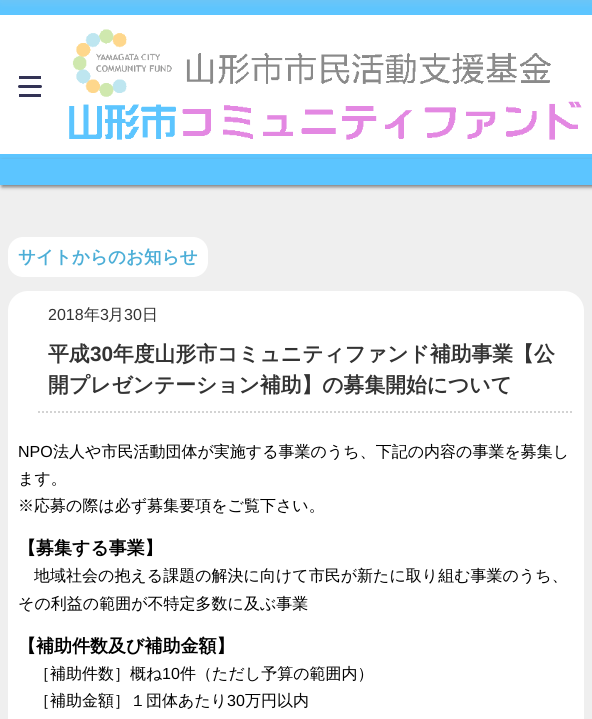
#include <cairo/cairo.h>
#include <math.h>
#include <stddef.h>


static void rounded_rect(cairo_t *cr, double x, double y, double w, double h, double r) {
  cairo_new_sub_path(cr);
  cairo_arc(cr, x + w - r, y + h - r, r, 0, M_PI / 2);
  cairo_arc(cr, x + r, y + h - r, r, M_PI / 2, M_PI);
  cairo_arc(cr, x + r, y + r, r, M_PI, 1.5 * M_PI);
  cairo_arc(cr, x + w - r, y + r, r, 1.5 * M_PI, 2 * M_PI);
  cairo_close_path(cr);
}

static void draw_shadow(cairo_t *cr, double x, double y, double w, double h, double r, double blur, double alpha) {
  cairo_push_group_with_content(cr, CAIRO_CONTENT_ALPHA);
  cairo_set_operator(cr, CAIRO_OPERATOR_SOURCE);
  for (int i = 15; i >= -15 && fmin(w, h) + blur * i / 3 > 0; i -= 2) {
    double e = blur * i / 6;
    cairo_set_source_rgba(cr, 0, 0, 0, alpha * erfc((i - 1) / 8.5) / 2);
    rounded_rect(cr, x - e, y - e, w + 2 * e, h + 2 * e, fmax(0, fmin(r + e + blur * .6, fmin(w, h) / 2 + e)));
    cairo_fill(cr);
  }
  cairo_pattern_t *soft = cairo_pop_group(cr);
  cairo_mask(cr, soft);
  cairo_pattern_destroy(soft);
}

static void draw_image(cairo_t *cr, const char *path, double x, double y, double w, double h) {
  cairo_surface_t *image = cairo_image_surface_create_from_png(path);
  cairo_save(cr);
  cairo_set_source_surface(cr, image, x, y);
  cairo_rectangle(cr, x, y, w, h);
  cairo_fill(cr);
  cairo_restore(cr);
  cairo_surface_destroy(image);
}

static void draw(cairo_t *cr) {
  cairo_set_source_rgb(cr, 239 / 255.0, 239 / 255.0, 239 / 255.0);
  cairo_paint(cr);
  cairo_set_source_rgb(cr, 92 / 255.0, 197 / 255.0, 1);
  cairo_rectangle(cr, 0, 0, 592, 15);
  cairo_fill(cr);
  cairo_save(cr);
  cairo_rectangle(cr, 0, 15, 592, 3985);
  cairo_clip(cr);
  cairo_set_source_rgb(cr, 0, 0, 0);
  draw_shadow(cr, 0, 15, 592, 170, 0, 2, 0.2);
  cairo_restore(cr);
  cairo_set_source_rgb(cr, 1, 1, 1);
  cairo_rectangle(cr, 0, 15, 592, 139);
  cairo_fill(cr);
  cairo_set_source_rgb(cr, 200 / 255.0, 200 / 255.0, 200 / 255.0);
  draw_shadow(cr, 0, -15, 592, 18, 0, 5, 0.2);
  cairo_set_source_rgb(cr, 92 / 255.0, 197 / 255.0, 1);
  cairo_rectangle(cr, 0, 154, 592, 5);
  cairo_fill(cr);
  draw_image(cr, "images/1.png", 69, 29, 513, 111);
  cairo_set_source_rgb(cr, 51 / 255.0, 51 / 255.0, 85 / 255.0);
  cairo_rectangle(cr, 19, 76, 22, 3);
  cairo_fill(cr);
  rounded_rect(cr, 18, 85, 24, 3, 1.5);
  cairo_fill(cr);
  cairo_rectangle(cr, 19, 94, 22, 3);
  cairo_fill(cr);
  cairo_set_source_rgb(cr, 128 / 255.0, 128 / 255.0, 128 / 255.0);
  draw_shadow(cr, 2, 161, 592, 26, 0, 2, 1);
  cairo_set_source_rgb(cr, 92 / 255.0, 197 / 255.0, 1);
  cairo_rectangle(cr, 0, 159, 592, 26);
  cairo_fill(cr);
  cairo_set_source_rgb(cr, 1, 1, 1);
  rounded_rect(cr, 8, 237, 200, 40, 15);
  cairo_fill(cr);
  rounded_rect(cr, 8, 291, 576, 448, 20);
  cairo_fill(cr);
  cairo_new_path(cr);
  cairo_move_to(cr, 38, 412);
  cairo_line_to(cr, 574, 412);
  cairo_set_source_rgb(cr, 211 / 255.0, 211 / 255.0, 211 / 255.0);
  cairo_set_dash(cr, (double[]){2, 2}, 2, 0);
  cairo_stroke(cr);
  cairo_select_font_face(cr, "WenQuanYi Zen Hei", CAIRO_FONT_SLANT_NORMAL, CAIRO_FONT_WEIGHT_BOLD);
  cairo_set_font_size(cr, 17.6);
  cairo_set_source_rgb(cr, 76 / 255.0, 174 / 255.0, 215 / 255.0);
  cairo_move_to(cr, 18, 263);
  cairo_show_text(cr, "サイトからのお知らせ");
  cairo_select_font_face(cr, "Liberation Sans", CAIRO_FONT_SLANT_NORMAL, CAIRO_FONT_WEIGHT_NORMAL);
  cairo_set_font_size(cr, 16);
  cairo_set_source_rgb(cr, 51 / 255.0, 51 / 255.0, 51 / 255.0);
  cairo_move_to(cr, 48, 320);
  cairo_show_text(cr, "2018");
  cairo_select_font_face(cr, "WenQuanYi Zen Hei Medium", CAIRO_FONT_SLANT_NORMAL, CAIRO_FONT_WEIGHT_NORMAL);
  cairo_move_to(cr, 84, 320);
  cairo_show_text(cr, "年");
  cairo_select_font_face(cr, "Liberation Sans", CAIRO_FONT_SLANT_NORMAL, CAIRO_FONT_WEIGHT_NORMAL);
  cairo_move_to(cr, 100, 320);
  cairo_show_text(cr, "3");
  cairo_select_font_face(cr, "WenQuanYi Zen Hei Medium", CAIRO_FONT_SLANT_NORMAL, CAIRO_FONT_WEIGHT_NORMAL);
  cairo_move_to(cr, 108, 320);
  cairo_show_text(cr, "月");
  cairo_select_font_face(cr, "Liberation Sans", CAIRO_FONT_SLANT_NORMAL, CAIRO_FONT_WEIGHT_NORMAL);
  cairo_move_to(cr, 124, 320);
  cairo_show_text(cr, "30");
  cairo_select_font_face(cr, "WenQuanYi Zen Hei Medium", CAIRO_FONT_SLANT_NORMAL, CAIRO_FONT_WEIGHT_NORMAL);
  cairo_move_to(cr, 142, 320);
  cairo_show_text(cr, "日");
  cairo_select_font_face(cr, "WenQuanYi Zen Hei", CAIRO_FONT_SLANT_NORMAL, CAIRO_FONT_WEIGHT_BOLD);
  cairo_set_font_size(cr, 20.8);
  cairo_move_to(cr, 48, 361);
  cairo_show_text(cr, "平成");
  cairo_select_font_face(cr, "Liberation Sans", CAIRO_FONT_SLANT_NORMAL, CAIRO_FONT_WEIGHT_BOLD);
  cairo_move_to(cr, 90, 361);
  cairo_show_text(cr, "30");
  cairo_select_font_face(cr, "WenQuanYi Zen Hei", CAIRO_FONT_SLANT_NORMAL, CAIRO_FONT_WEIGHT_BOLD);
  cairo_move_to(cr, 113, 361);
  cairo_show_text(cr, "年度山形市コミュニティファンド補助事業【公");
  cairo_move_to(cr, 48, 392);
  cairo_show_text(cr, "開プレゼンテーション補助】の募集開始について");
  cairo_select_font_face(cr, "Liberation Sans", CAIRO_FONT_SLANT_NORMAL, CAIRO_FONT_WEIGHT_NORMAL);
  cairo_set_font_size(cr, 16);
  cairo_set_source_rgb(cr, 0, 0, 0);
  cairo_move_to(cr, 18, 457);
  cairo_show_text(cr, "NPO");
  cairo_select_font_face(cr, "WenQuanYi Zen Hei Medium", CAIRO_FONT_SLANT_NORMAL, CAIRO_FONT_WEIGHT_NORMAL);
  cairo_move_to(cr, 53, 457);
  cairo_show_text(cr, "法人や市民活動団体が実施する事業のうち、下記の内容の事業を募集し");
  cairo_move_to(cr, 18, 484);
  cairo_show_text(cr, "ます。");
  cairo_move_to(cr, 18, 511);
  cairo_show_text(cr, "※応募の際は必ず募集要項をご覧下さい。");
  cairo_select_font_face(cr, "WenQuanYi Zen Hei", CAIRO_FONT_SLANT_NORMAL, CAIRO_FONT_WEIGHT_BOLD);
  cairo_set_font_size(cr, 18);
  cairo_move_to(cr, 18, 554);
  cairo_show_text(cr, "【募集する事業】");
  cairo_select_font_face(cr, "WenQuanYi Zen Hei Medium", CAIRO_FONT_SLANT_NORMAL, CAIRO_FONT_WEIGHT_NORMAL);
  cairo_set_font_size(cr, 16);
  cairo_move_to(cr, 34, 581);
  cairo_show_text(cr, "地域社会の抱える課題の解決に向けて市民が新たに取り組む事業のうち、");
  cairo_move_to(cr, 18, 609);
  cairo_show_text(cr, "その利益の範囲が不特定多数に及ぶ事業");
  cairo_select_font_face(cr, "WenQuanYi Zen Hei", CAIRO_FONT_SLANT_NORMAL, CAIRO_FONT_WEIGHT_BOLD);
  cairo_set_font_size(cr, 18);
  cairo_move_to(cr, 18, 652);
  cairo_show_text(cr, "【補助件数及び補助金額】");
  cairo_select_font_face(cr, "WenQuanYi Zen Hei Medium", CAIRO_FONT_SLANT_NORMAL, CAIRO_FONT_WEIGHT_NORMAL);
  cairo_set_font_size(cr, 16);
  cairo_move_to(cr, 34, 679);
  cairo_show_text(cr, "［補助件数］概ね");
  cairo_select_font_face(cr, "Liberation Sans", CAIRO_FONT_SLANT_NORMAL, CAIRO_FONT_WEIGHT_NORMAL);
  cairo_move_to(cr, 162, 679);
  cairo_show_text(cr, "10");
  cairo_select_font_face(cr, "WenQuanYi Zen Hei Medium", CAIRO_FONT_SLANT_NORMAL, CAIRO_FONT_WEIGHT_NORMAL);
  cairo_move_to(cr, 180, 679);
  cairo_show_text(cr, "件（ただし予算の範囲内）");
  cairo_move_to(cr, 34, 706);
  cairo_show_text(cr, "［補助金額］１団体あたり");
  cairo_select_font_face(cr, "Liberation Sans", CAIRO_FONT_SLANT_NORMAL, CAIRO_FONT_WEIGHT_NORMAL);
  cairo_move_to(cr, 227, 706);
  cairo_show_text(cr, "30");
  cairo_select_font_face(cr, "WenQuanYi Zen Hei Medium", CAIRO_FONT_SLANT_NORMAL, CAIRO_FONT_WEIGHT_NORMAL);
  cairo_move_to(cr, 245, 706);
  cairo_show_text(cr, "万円以内");
}

int main(void) {
  cairo_surface_t *surface = cairo_image_surface_create(CAIRO_FORMAT_RGB24, 592, 719);
  cairo_t *cr = cairo_create(surface);
  cairo_font_options_t *options = cairo_font_options_create();
  cairo_font_options_set_hint_metrics(options, CAIRO_HINT_METRICS_OFF);
  cairo_font_options_set_hint_style(options, CAIRO_HINT_STYLE_NONE);
  cairo_set_font_options(cr, options);
  cairo_set_miter_limit(cr, 4);
  draw(cr);
  cairo_surface_write_to_png(surface, "out.png");
  cairo_font_options_destroy(options);
  cairo_destroy(cr);
  cairo_surface_destroy(surface);
  return 0;
}
